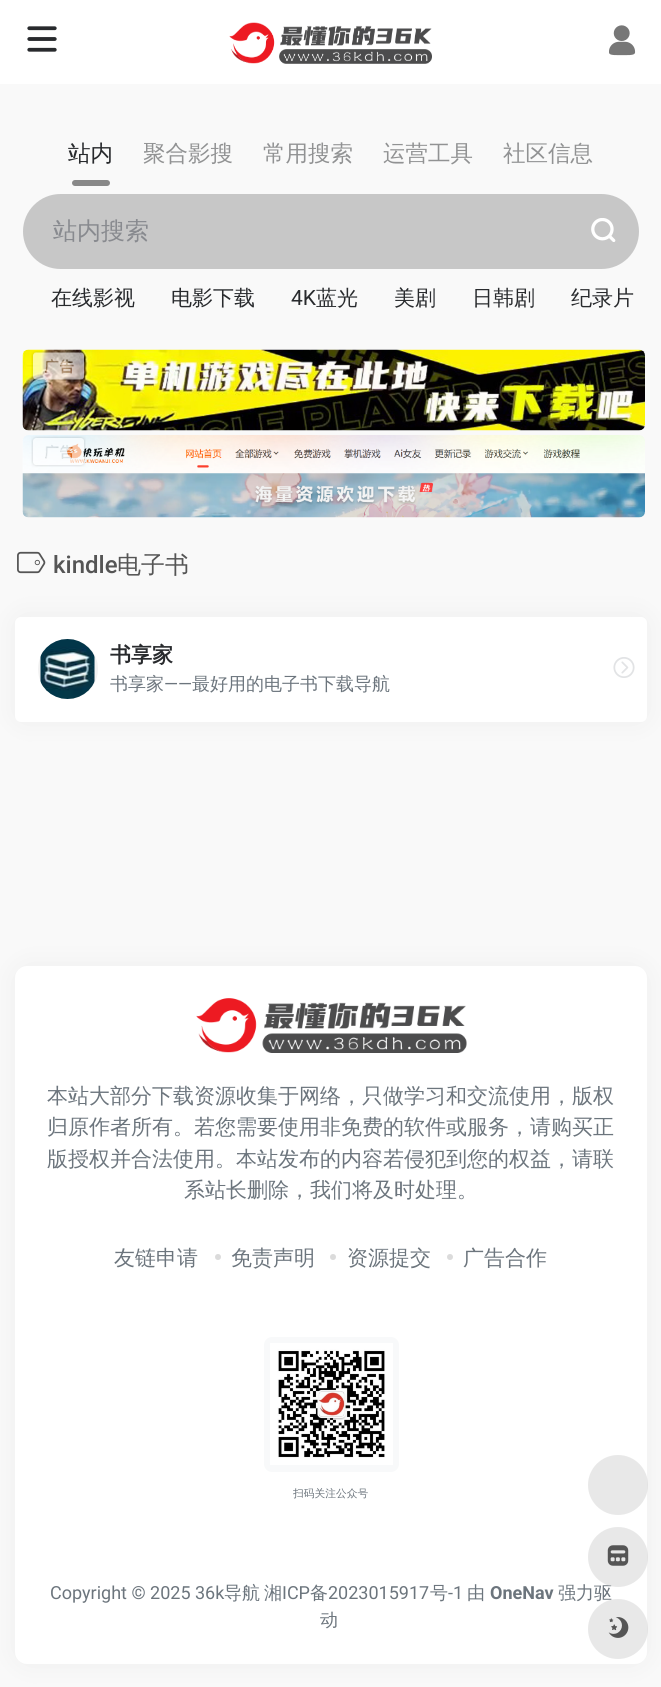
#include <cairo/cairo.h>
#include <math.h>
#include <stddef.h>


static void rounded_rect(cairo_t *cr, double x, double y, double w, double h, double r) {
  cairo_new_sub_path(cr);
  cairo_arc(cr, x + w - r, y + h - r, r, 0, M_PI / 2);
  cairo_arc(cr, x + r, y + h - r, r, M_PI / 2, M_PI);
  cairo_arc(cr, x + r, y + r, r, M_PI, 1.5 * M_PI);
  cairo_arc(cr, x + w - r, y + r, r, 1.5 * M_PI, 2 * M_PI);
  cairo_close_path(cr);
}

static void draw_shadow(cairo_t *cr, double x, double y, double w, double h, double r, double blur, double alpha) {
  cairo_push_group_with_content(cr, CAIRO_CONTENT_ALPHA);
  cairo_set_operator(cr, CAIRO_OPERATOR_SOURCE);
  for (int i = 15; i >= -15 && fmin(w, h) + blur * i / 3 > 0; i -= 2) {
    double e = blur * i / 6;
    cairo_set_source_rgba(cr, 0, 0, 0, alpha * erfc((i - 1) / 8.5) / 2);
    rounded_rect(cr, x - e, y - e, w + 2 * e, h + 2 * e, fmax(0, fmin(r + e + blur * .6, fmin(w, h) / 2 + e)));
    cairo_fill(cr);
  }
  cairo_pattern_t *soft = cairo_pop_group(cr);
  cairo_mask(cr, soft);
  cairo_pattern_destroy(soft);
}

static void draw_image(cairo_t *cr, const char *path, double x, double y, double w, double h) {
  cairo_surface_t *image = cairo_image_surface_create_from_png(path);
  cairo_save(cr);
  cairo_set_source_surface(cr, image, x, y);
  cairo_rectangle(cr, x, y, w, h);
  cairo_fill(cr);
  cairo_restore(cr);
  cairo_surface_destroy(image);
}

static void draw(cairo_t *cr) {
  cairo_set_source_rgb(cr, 249 / 255.0, 249 / 255.0, 249 / 255.0);
  cairo_paint(cr);
  cairo_set_source_rgb(cr, 1, 1, 1);
  cairo_rectangle(cr, 0, 0, 661, 84);
  cairo_fill(cr);
  draw_image(cr, "images/1.png", 27, 26, 30, 26);
  draw_image(cr, "images/2.png", 229, 22, 203, 42);
  draw_image(cr, "images/3.png", 609, 25, 27, 31);
  cairo_set_source_rgb(cr, 136 / 255.0, 136 / 255.0, 136 / 255.0);
  rounded_rect(cr, 72, 180, 38, 6, 3);
  cairo_fill(cr);
  cairo_set_source_rgb(cr, 199 / 255.0, 199 / 255.0, 199 / 255.0);
  rounded_rect(cr, 23, 194, 616, 75, 37.5);
  cairo_fill(cr);
  draw_image(cr, "images/4.png", 591, 218, 25, 24);
  draw_image(cr, "images/5.png", 22, 349, 623, 82);
  draw_image(cr, "images/6.png", 31, 351, 55, 30);
  draw_image(cr, "images/7.png", 22, 435, 623, 83);
  draw_image(cr, "images/8.png", 31, 436, 55, 31);
  draw_image(cr, "images/9.png", 17, 551, 29, 23);
  cairo_set_source_rgb(cr, 158 / 255.0, 158 / 255.0, 158 / 255.0);
  draw_shadow(cr, 23, 624, 616, 90, 0, 15, 0.2);
  cairo_set_source_rgb(cr, 1, 1, 1);
  rounded_rect(cr, 15, 617, 632, 105, 6);
  cairo_fill(cr);
  cairo_set_source_rgb(cr, 242 / 255.0, 242 / 255.0, 242 / 255.0);
  cairo_arc(cr, 68, 669, 30, 0, 2 * M_PI);
  cairo_fill(cr);
  draw_image(cr, "images/10.png", 40, 639, 55, 60);
  draw_image(cr, "images/11.png", 613, 657, 22, 21);
  cairo_set_source_rgb(cr, 158 / 255.0, 158 / 255.0, 158 / 255.0);
  draw_shadow(cr, 23, 974, 616, 682, 5, 15, 0.2);
  cairo_set_source_rgb(cr, 1, 1, 1);
  rounded_rect(cr, 15, 966, 632, 698, 12);
  cairo_fill(cr);
  draw_image(cr, "images/12.png", 196, 998, 271, 55);
  cairo_set_source_rgb(cr, 219 / 255.0, 219 / 255.0, 219 / 255.0);
  cairo_arc(cr, 218, 1257, 3, 0, 2 * M_PI);
  cairo_fill(cr);
  cairo_arc(cr, 333, 1257, 3, 0, 2 * M_PI);
  cairo_fill(cr);
  cairo_arc(cr, 450, 1257, 3, 0, 2 * M_PI);
  cairo_fill(cr);
  cairo_set_source_rgb(cr, 248 / 255.0, 249 / 255.0, 250 / 255.0);
  rounded_rect(cr, 264, 1337, 135, 135, 8);
  cairo_fill(cr);
  draw_image(cr, "images/13.png", 270, 1343, 123, 122);
  cairo_set_source_rgba(cr, 210 / 255.0, 210 / 255.0, 210 / 255.0, 0.5);
  cairo_arc(cr, 618, 1485, 30, 0, 2 * M_PI);
  cairo_fill(cr);
  cairo_select_font_face(cr, "WenQuanYi Zen Hei Medium", CAIRO_FONT_SLANT_NORMAL, CAIRO_FONT_WEIGHT_NORMAL);
  cairo_set_font_size(cr, 22.5);
  cairo_set_source_rgb(cr, 40 / 255.0, 42 / 255.0, 45 / 255.0);
  cairo_move_to(cr, 68, 161);
  cairo_show_text(cr, "站内");
  cairo_set_source_rgb(cr, 145 / 255.0, 146 / 255.0, 147 / 255.0);
  cairo_move_to(cr, 143, 161);
  cairo_show_text(cr, "聚合影搜");
  cairo_move_to(cr, 263, 161);
  cairo_show_text(cr, "常用搜索");
  cairo_move_to(cr, 383, 161);
  cairo_show_text(cr, "运营工具");
  cairo_move_to(cr, 503, 161);
  cairo_show_text(cr, "社区信息");
  cairo_set_font_size(cr, 24);
  cairo_set_source_rgb(cr, 136 / 255.0, 138 / 255.0, 143 / 255.0);
  cairo_move_to(cr, 53, 239);
  cairo_show_text(cr, "站内搜索");
  cairo_set_font_size(cr, 21);
  cairo_set_source_rgb(cr, 40 / 255.0, 42 / 255.0, 45 / 255.0);
  cairo_move_to(cr, 51, 305);
  cairo_show_text(cr, "在线影视");
  cairo_move_to(cr, 171, 305);
  cairo_show_text(cr, "电影下载");
  cairo_select_font_face(cr, "Roboto", CAIRO_FONT_SLANT_NORMAL, CAIRO_FONT_WEIGHT_NORMAL);
  cairo_move_to(cr, 291, 305);
  cairo_show_text(cr, "4K");
  cairo_select_font_face(cr, "WenQuanYi Zen Hei Medium", CAIRO_FONT_SLANT_NORMAL, CAIRO_FONT_WEIGHT_NORMAL);
  cairo_move_to(cr, 316, 305);
  cairo_show_text(cr, "蓝光");
  cairo_move_to(cr, 394, 305);
  cairo_show_text(cr, "美剧");
  cairo_move_to(cr, 472, 305);
  cairo_show_text(cr, "日韩剧");
  cairo_move_to(cr, 571, 305);
  cairo_show_text(cr, "纪录片");
  cairo_select_font_face(cr, "Roboto Medium", CAIRO_FONT_SLANT_NORMAL, CAIRO_FONT_WEIGHT_NORMAL);
  cairo_set_font_size(cr, 24);
  cairo_set_source_rgb(cr, 85 / 255.0, 85 / 255.0, 85 / 255.0);
  cairo_move_to(cr, 53, 573);
  cairo_show_text(cr, "kindle");
  cairo_select_font_face(cr, "WenQuanYi Zen Hei Medium", CAIRO_FONT_SLANT_NORMAL, CAIRO_FONT_WEIGHT_NORMAL);
  cairo_move_to(cr, 117, 573);
  cairo_show_text(cr, "电子书");
  cairo_select_font_face(cr, "WenQuanYi Zen Hei", CAIRO_FONT_SLANT_NORMAL, CAIRO_FONT_WEIGHT_BOLD);
  cairo_set_font_size(cr, 21);
  cairo_set_source_rgb(cr, 40 / 255.0, 42 / 255.0, 45 / 255.0);
  cairo_move_to(cr, 110, 662);
  cairo_show_text(cr, "书享家");
  cairo_select_font_face(cr, "WenQuanYi Zen Hei Medium", CAIRO_FONT_SLANT_NORMAL, CAIRO_FONT_WEIGHT_NORMAL);
  cairo_set_font_size(cr, 18);
  cairo_set_source_rgb(cr, 108 / 255.0, 117 / 255.0, 125 / 255.0);
  cairo_move_to(cr, 110, 690);
  cairo_show_text(cr, "书享家");
  cairo_select_font_face(cr, "Roboto", CAIRO_FONT_SLANT_NORMAL, CAIRO_FONT_WEIGHT_NORMAL);
  cairo_move_to(cr, 164, 690);
  cairo_show_text(cr, "——");
  cairo_select_font_face(cr, "WenQuanYi Zen Hei Medium", CAIRO_FONT_SLANT_NORMAL, CAIRO_FONT_WEIGHT_NORMAL);
  cairo_move_to(cr, 192, 690);
  cairo_show_text(cr, "最好用的电子书下载导航");
  cairo_set_font_size(cr, 21);
  cairo_move_to(cr, 47, 1103);
  cairo_show_text(cr, "本站大部分下载资源收集于网络，只做学习和交流使用，版权");
  cairo_move_to(cr, 47, 1134);
  cairo_show_text(cr, "归原作者所有。若您需要使用非免费的软件或服务，请购买正");
  cairo_move_to(cr, 47, 1166);
  cairo_show_text(cr, "版授权并合法使用。本站发布的内容若侵犯到您的权益，请联");
  cairo_move_to(cr, 184, 1197);
  cairo_show_text(cr, "系站长删除，我们将及时处理。");
  cairo_move_to(cr, 114, 1265);
  cairo_show_text(cr, "友链申请");
  cairo_move_to(cr, 231, 1265);
  cairo_show_text(cr, "免责声明");
  cairo_move_to(cr, 347, 1265);
  cairo_show_text(cr, "资源提交");
  cairo_move_to(cr, 463, 1265);
  cairo_show_text(cr, "广告合作");
  cairo_set_font_size(cr, 10.75);
  cairo_move_to(cr, 293, 1497);
  cairo_show_text(cr, "扫码关注公众号");
  cairo_select_font_face(cr, "Roboto", CAIRO_FONT_SLANT_NORMAL, CAIRO_FONT_WEIGHT_NORMAL);
  cairo_set_font_size(cr, 18);
  cairo_move_to(cr, 50, 1599);
  cairo_show_text(cr, "Copyright © 2025 36k");
  cairo_select_font_face(cr, "WenQuanYi Zen Hei Medium", CAIRO_FONT_SLANT_NORMAL, CAIRO_FONT_WEIGHT_NORMAL);
  cairo_move_to(cr, 224, 1599);
  cairo_show_text(cr, "导航");
  cairo_move_to(cr, 264, 1599);
  cairo_show_text(cr, "湘");
  cairo_select_font_face(cr, "Roboto", CAIRO_FONT_SLANT_NORMAL, CAIRO_FONT_WEIGHT_NORMAL);
  cairo_move_to(cr, 282, 1599);
  cairo_show_text(cr, "ICP");
  cairo_select_font_face(cr, "WenQuanYi Zen Hei Medium", CAIRO_FONT_SLANT_NORMAL, CAIRO_FONT_WEIGHT_NORMAL);
  cairo_move_to(cr, 310, 1599);
  cairo_show_text(cr, "备");
  cairo_select_font_face(cr, "Roboto", CAIRO_FONT_SLANT_NORMAL, CAIRO_FONT_WEIGHT_NORMAL);
  cairo_move_to(cr, 328, 1599);
  cairo_show_text(cr, "2023015917");
  cairo_select_font_face(cr, "WenQuanYi Zen Hei Medium", CAIRO_FONT_SLANT_NORMAL, CAIRO_FONT_WEIGHT_NORMAL);
  cairo_move_to(cr, 430, 1599);
  cairo_show_text(cr, "号");
  cairo_select_font_face(cr, "Roboto", CAIRO_FONT_SLANT_NORMAL, CAIRO_FONT_WEIGHT_NORMAL);
  cairo_move_to(cr, 448, 1599);
  cairo_show_text(cr, "-1");
  cairo_select_font_face(cr, "WenQuanYi Zen Hei Medium", CAIRO_FONT_SLANT_NORMAL, CAIRO_FONT_WEIGHT_NORMAL);
  cairo_move_to(cr, 467, 1599);
  cairo_show_text(cr, "由");
  cairo_select_font_face(cr, "Roboto", CAIRO_FONT_SLANT_NORMAL, CAIRO_FONT_WEIGHT_BOLD);
  cairo_move_to(cr, 490, 1599);
  cairo_show_text(cr, "OneNav");
  cairo_select_font_face(cr, "WenQuanYi Zen Hei Medium", CAIRO_FONT_SLANT_NORMAL, CAIRO_FONT_WEIGHT_NORMAL);
  cairo_move_to(cr, 558, 1599);
  cairo_show_text(cr, "强力驱");
  cairo_move_to(cr, 320, 1626);
  cairo_show_text(cr, "动");
  cairo_set_source_rgba(cr, 210 / 255.0, 210 / 255.0, 210 / 255.0, 0.5);
  cairo_new_path(cr);
  cairo_arc(cr, 618, 1557, 30, 0, 2 * M_PI);
  cairo_fill(cr);
  draw_image(cr, "images/14.png", 607, 1545, 22, 21);
  cairo_arc(cr, 618, 1629, 30, 0, 2 * M_PI);
  cairo_fill(cr);
  draw_image(cr, "images/15.png", 608, 1617, 21, 21);
}

int main(void) {
  cairo_surface_t *surface = cairo_image_surface_create(CAIRO_FORMAT_RGB24, 661, 1687);
  cairo_t *cr = cairo_create(surface);
  cairo_font_options_t *options = cairo_font_options_create();
  cairo_font_options_set_hint_metrics(options, CAIRO_HINT_METRICS_OFF);
  cairo_font_options_set_hint_style(options, CAIRO_HINT_STYLE_NONE);
  cairo_set_font_options(cr, options);
  cairo_set_miter_limit(cr, 4);
  draw(cr);
  cairo_surface_write_to_png(surface, "out.png");
  cairo_font_options_destroy(options);
  cairo_destroy(cr);
  cairo_surface_destroy(surface);
  return 0;
}
